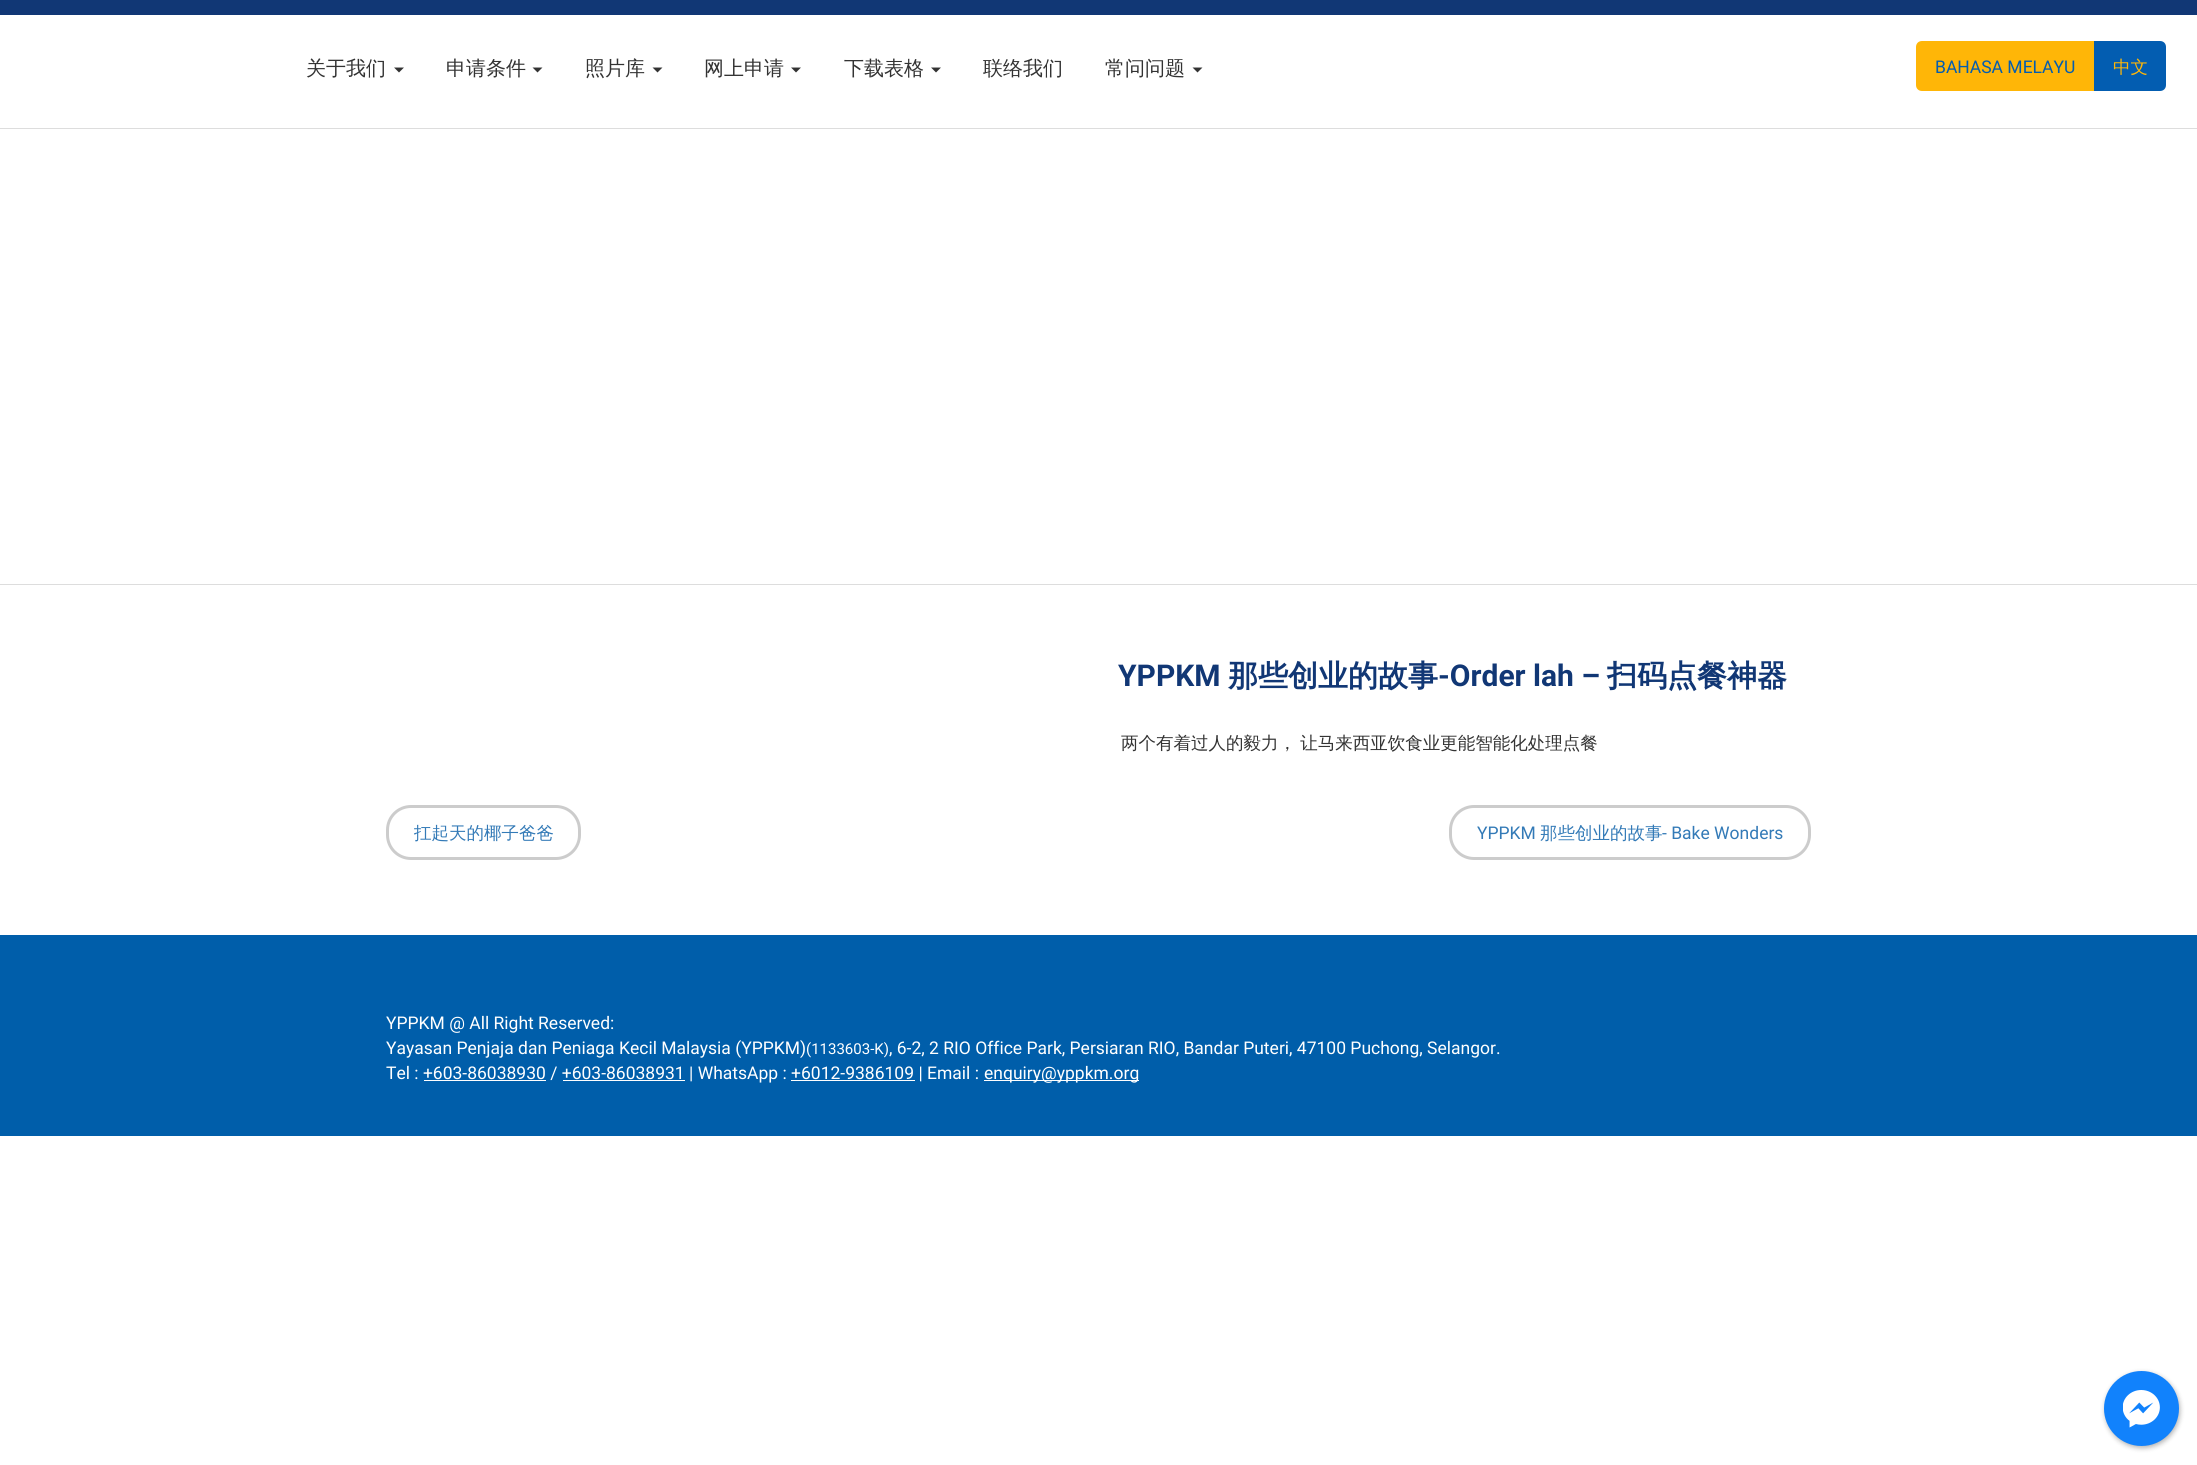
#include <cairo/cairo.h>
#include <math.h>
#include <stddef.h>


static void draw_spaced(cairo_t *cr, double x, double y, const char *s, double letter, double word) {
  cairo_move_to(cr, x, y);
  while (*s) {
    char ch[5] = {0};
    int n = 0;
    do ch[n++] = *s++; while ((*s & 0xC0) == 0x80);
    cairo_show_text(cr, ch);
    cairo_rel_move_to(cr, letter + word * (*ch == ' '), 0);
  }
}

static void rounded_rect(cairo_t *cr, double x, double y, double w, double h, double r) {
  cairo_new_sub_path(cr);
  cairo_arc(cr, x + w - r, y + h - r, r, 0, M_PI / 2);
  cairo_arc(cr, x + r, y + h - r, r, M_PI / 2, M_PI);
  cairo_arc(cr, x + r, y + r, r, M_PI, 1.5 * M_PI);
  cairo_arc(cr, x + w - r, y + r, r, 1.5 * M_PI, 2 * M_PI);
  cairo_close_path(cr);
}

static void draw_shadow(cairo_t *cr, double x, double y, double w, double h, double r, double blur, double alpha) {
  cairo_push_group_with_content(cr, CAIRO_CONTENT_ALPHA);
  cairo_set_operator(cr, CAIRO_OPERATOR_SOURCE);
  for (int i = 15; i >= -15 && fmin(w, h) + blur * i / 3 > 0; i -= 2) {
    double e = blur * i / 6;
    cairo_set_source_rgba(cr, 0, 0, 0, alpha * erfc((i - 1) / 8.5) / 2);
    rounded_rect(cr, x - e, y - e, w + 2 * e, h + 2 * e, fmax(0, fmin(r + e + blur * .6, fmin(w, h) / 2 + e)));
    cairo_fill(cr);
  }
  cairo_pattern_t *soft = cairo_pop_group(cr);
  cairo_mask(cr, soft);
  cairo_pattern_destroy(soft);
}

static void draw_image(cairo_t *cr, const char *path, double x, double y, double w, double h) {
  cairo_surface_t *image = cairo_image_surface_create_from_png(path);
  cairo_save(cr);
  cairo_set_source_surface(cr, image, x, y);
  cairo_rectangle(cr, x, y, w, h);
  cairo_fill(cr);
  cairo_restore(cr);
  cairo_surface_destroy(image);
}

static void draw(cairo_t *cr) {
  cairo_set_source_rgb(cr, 1, 1, 1);
  cairo_paint(cr);
  cairo_set_source_rgb(cr, 17 / 255.0, 55 / 255.0, 117 / 255.0);
  cairo_rectangle(cr, 0, 0, 2197, 15);
  cairo_fill(cr);
  cairo_set_source_rgb(cr, 51 / 255.0, 51 / 255.0, 51 / 255.0);
  cairo_new_path(cr);
  cairo_move_to(cr, 394, 67.5);
  cairo_line_to(cr, 404, 67.5);
  cairo_line_to(cr, 399, 72.5);
  cairo_close_path(cr);
  cairo_fill(cr);
  cairo_new_path(cr);
  cairo_move_to(cr, 532.5, 67.5);
  cairo_line_to(cr, 542.5, 67.5);
  cairo_line_to(cr, 537.5, 72.5);
  cairo_close_path(cr);
  cairo_fill(cr);
  cairo_new_path(cr);
  cairo_move_to(cr, 652.5, 67.5);
  cairo_line_to(cr, 662.5, 67.5);
  cairo_line_to(cr, 657.5, 72.5);
  cairo_close_path(cr);
  cairo_fill(cr);
  cairo_new_path(cr);
  cairo_move_to(cr, 791, 67.5);
  cairo_line_to(cr, 801, 67.5);
  cairo_line_to(cr, 796, 72.5);
  cairo_close_path(cr);
  cairo_fill(cr);
  cairo_new_path(cr);
  cairo_move_to(cr, 931, 67.5);
  cairo_line_to(cr, 941, 67.5);
  cairo_line_to(cr, 936, 72.5);
  cairo_close_path(cr);
  cairo_fill(cr);
  cairo_new_path(cr);
  cairo_move_to(cr, 1192.5, 67.5);
  cairo_line_to(cr, 1202.5, 67.5);
  cairo_line_to(cr, 1197.5, 72.5);
  cairo_close_path(cr);
  cairo_fill(cr);
  cairo_set_source_rgb(cr, 1, 182 / 255.0, 7 / 255.0);
  cairo_new_path(cr);
  cairo_move_to(cr, 1922, 41);
  cairo_line_to(cr, 2094, 41);
  cairo_line_to(cr, 2094, 91);
  cairo_line_to(cr, 1922, 91);
  cairo_curve_to(cr, 1918.5, 91, 1916, 88.5, 1916, 85);
  cairo_line_to(cr, 1916, 47);
  cairo_curve_to(cr, 1916, 43.5, 1918.5, 41, 1922, 41);
  cairo_close_path(cr);
  cairo_fill(cr);
  cairo_set_source_rgb(cr, 3 / 255.0, 93 / 255.0, 177 / 255.0);
  cairo_new_path(cr);
  cairo_move_to(cr, 2094, 41);
  cairo_line_to(cr, 2160, 41);
  cairo_curve_to(cr, 2163.5, 41, 2166, 43.5, 2166, 47);
  cairo_line_to(cr, 2166, 85);
  cairo_curve_to(cr, 2166, 88.5, 2163.5, 91, 2160, 91);
  cairo_line_to(cr, 2094, 91);
  cairo_close_path(cr);
  cairo_fill(cr);
  cairo_set_source_rgb(cr, 221 / 255.0, 221 / 255.0, 221 / 255.0);
  cairo_rectangle(cr, 0, 128, 2197, 1);
  cairo_fill(cr);
  cairo_rectangle(cr, 0, 584, 2197, 1);
  cairo_fill(cr);
  rounded_rect(cr, 387.5, 806.5, 192, 52, 23.5);
  cairo_set_source_rgb(cr, 204 / 255.0, 204 / 255.0, 204 / 255.0);
  cairo_set_line_width(cr, 3);
  cairo_stroke(cr);
  rounded_rect(cr, 1450.5, 806.5, 359, 52, 23.5);
  cairo_stroke(cr);
  cairo_set_source_rgb(cr, 0, 94 / 255.0, 170 / 255.0);
  cairo_rectangle(cr, 0, 935, 2197, 201);
  cairo_fill(cr);
  cairo_set_source_rgb(cr, 1, 1, 1);
  cairo_rectangle(cr, 984, 1080, 155, 1);
  cairo_fill(cr);
  cairo_rectangle(cr, 424, 1080, 122, 1);
  cairo_fill(cr);
  cairo_rectangle(cr, 563, 1080, 122, 1);
  cairo_fill(cr);
  cairo_rectangle(cr, 791, 1080, 124, 1);
  cairo_fill(cr);
  cairo_set_source_rgb(cr, 0, 0, 0);
  draw_shadow(cr, 2105, 1373, 75, 75, 37.5, 2.5, 0.3);
  cairo_set_source_rgb(cr, 17 / 255.0, 130 / 255.0, 252 / 255.0);
  cairo_arc(cr, 2141.5, 1408.5, 37.5, 0, 2 * M_PI);
  cairo_fill(cr);
  draw_image(cr, "images/1.png", 2123, 1390, 37, 38);
  cairo_select_font_face(cr, "WenQuanYi Zen Hei Medium", CAIRO_FONT_SLANT_NORMAL, CAIRO_FONT_WEIGHT_NORMAL);
  cairo_set_font_size(cr, 20);
  cairo_set_source_rgb(cr, 51 / 255.0, 51 / 255.0, 51 / 255.0);
  cairo_move_to(cr, 306, 75);
  cairo_show_text(cr, "关于我们");
  cairo_move_to(cr, 446, 75);
  cairo_show_text(cr, "申请条件");
  cairo_move_to(cr, 585, 75);
  cairo_show_text(cr, "照片库");
  cairo_move_to(cr, 704, 75);
  cairo_show_text(cr, "网上申请");
  cairo_move_to(cr, 844, 75);
  cairo_show_text(cr, "下载表格");
  cairo_move_to(cr, 983, 75);
  cairo_show_text(cr, "联络我们");
  cairo_move_to(cr, 1105, 75);
  cairo_show_text(cr, "常问问题");
  cairo_select_font_face(cr, "Roboto", CAIRO_FONT_SLANT_NORMAL, CAIRO_FONT_WEIGHT_NORMAL);
  cairo_set_font_size(cr, 17.5);
  cairo_set_source_rgb(cr, 3 / 255.0, 93 / 255.0, 177 / 255.0);
  cairo_move_to(cr, 1935, 73);
  cairo_show_text(cr, "BAHASA MELAYU");
  cairo_select_font_face(cr, "WenQuanYi Zen Hei Medium", CAIRO_FONT_SLANT_NORMAL, CAIRO_FONT_WEIGHT_NORMAL);
  cairo_set_source_rgb(cr, 1, 182 / 255.0, 7 / 255.0);
  cairo_move_to(cr, 2113, 73);
  cairo_show_text(cr, "中文");
  cairo_select_font_face(cr, "Roboto", CAIRO_FONT_SLANT_NORMAL, CAIRO_FONT_WEIGHT_BOLD);
  cairo_set_font_size(cr, 30);
  cairo_set_source_rgb(cr, 17 / 255.0, 55 / 255.0, 117 / 255.0);
  cairo_move_to(cr, 1118, 686);
  cairo_show_text(cr, "YPPKM");
  cairo_select_font_face(cr, "WenQuanYi Zen Hei", CAIRO_FONT_SLANT_NORMAL, CAIRO_FONT_WEIGHT_BOLD);
  cairo_move_to(cr, 1228, 686);
  cairo_show_text(cr, "那些创业的故事");
  cairo_select_font_face(cr, "Roboto", CAIRO_FONT_SLANT_NORMAL, CAIRO_FONT_WEIGHT_BOLD);
  cairo_move_to(cr, 1438, 686);
  cairo_show_text(cr, "-Order lah –");
  cairo_select_font_face(cr, "WenQuanYi Zen Hei", CAIRO_FONT_SLANT_NORMAL, CAIRO_FONT_WEIGHT_BOLD);
  cairo_move_to(cr, 1607, 686);
  cairo_show_text(cr, "扫码点餐神器");
  cairo_select_font_face(cr, "WenQuanYi Zen Hei Medium", CAIRO_FONT_SLANT_NORMAL, CAIRO_FONT_WEIGHT_NORMAL);
  cairo_set_font_size(cr, 17.5);
  cairo_set_source_rgb(cr, 51 / 255.0, 51 / 255.0, 51 / 255.0);
  draw_spaced(cr, 1121, 749, "两个有着过人的毅力， 让马来西亚饮食业更能智能化处理点餐", 0, -1);
  cairo_set_source_rgb(cr, 51 / 255.0, 122 / 255.0, 183 / 255.0);
  cairo_move_to(cr, 414, 839);
  cairo_show_text(cr, "扛起天的椰子爸爸");
  cairo_select_font_face(cr, "Roboto", CAIRO_FONT_SLANT_NORMAL, CAIRO_FONT_WEIGHT_NORMAL);
  cairo_move_to(cr, 1477, 839);
  cairo_show_text(cr, "YPPKM");
  cairo_select_font_face(cr, "WenQuanYi Zen Hei Medium", CAIRO_FONT_SLANT_NORMAL, CAIRO_FONT_WEIGHT_NORMAL);
  cairo_move_to(cr, 1540, 839);
  cairo_show_text(cr, "那些创业的故事");
  cairo_select_font_face(cr, "Roboto", CAIRO_FONT_SLANT_NORMAL, CAIRO_FONT_WEIGHT_NORMAL);
  cairo_move_to(cr, 1662, 839);
  cairo_show_text(cr, "- Bake Wonders");
  cairo_set_source_rgb(cr, 1, 1, 1);
  cairo_move_to(cr, 386, 1029);
  cairo_show_text(cr, "YPPKM @ All Right Reserved:");
  cairo_move_to(cr, 386, 1054);
  cairo_show_text(cr, "Yayasan Penjaja dan Peniaga Kecil Malaysia (YPPKM)");
  cairo_set_font_size(cr, 15);
  cairo_move_to(cr, 806, 1054);
  cairo_show_text(cr, "(1133603-K)");
  cairo_set_font_size(cr, 17.5);
  cairo_move_to(cr, 889, 1054);
  cairo_show_text(cr, ", 6-2, 2 RIO Office Park, Persiaran RIO, Bandar Puteri, 47100 Puchong, Selangor.");
  cairo_move_to(cr, 386, 1079);
  cairo_show_text(cr, "Tel : +603-86038930 / +603-86038931 | WhatsApp : +6012-9386109 | Email :");
  cairo_move_to(cr, 984, 1079);
  cairo_show_text(cr, "enquiry@yppkm.org");
}

int main(void) {
  cairo_surface_t *surface = cairo_image_surface_create(CAIRO_FORMAT_RGB24, 2197, 1465);
  cairo_t *cr = cairo_create(surface);
  cairo_font_options_t *options = cairo_font_options_create();
  cairo_font_options_set_hint_metrics(options, CAIRO_HINT_METRICS_OFF);
  cairo_font_options_set_hint_style(options, CAIRO_HINT_STYLE_NONE);
  cairo_set_font_options(cr, options);
  cairo_set_miter_limit(cr, 4);
  draw(cr);
  cairo_surface_write_to_png(surface, "out.png");
  cairo_font_options_destroy(options);
  cairo_destroy(cr);
  cairo_surface_destroy(surface);
  return 0;
}
